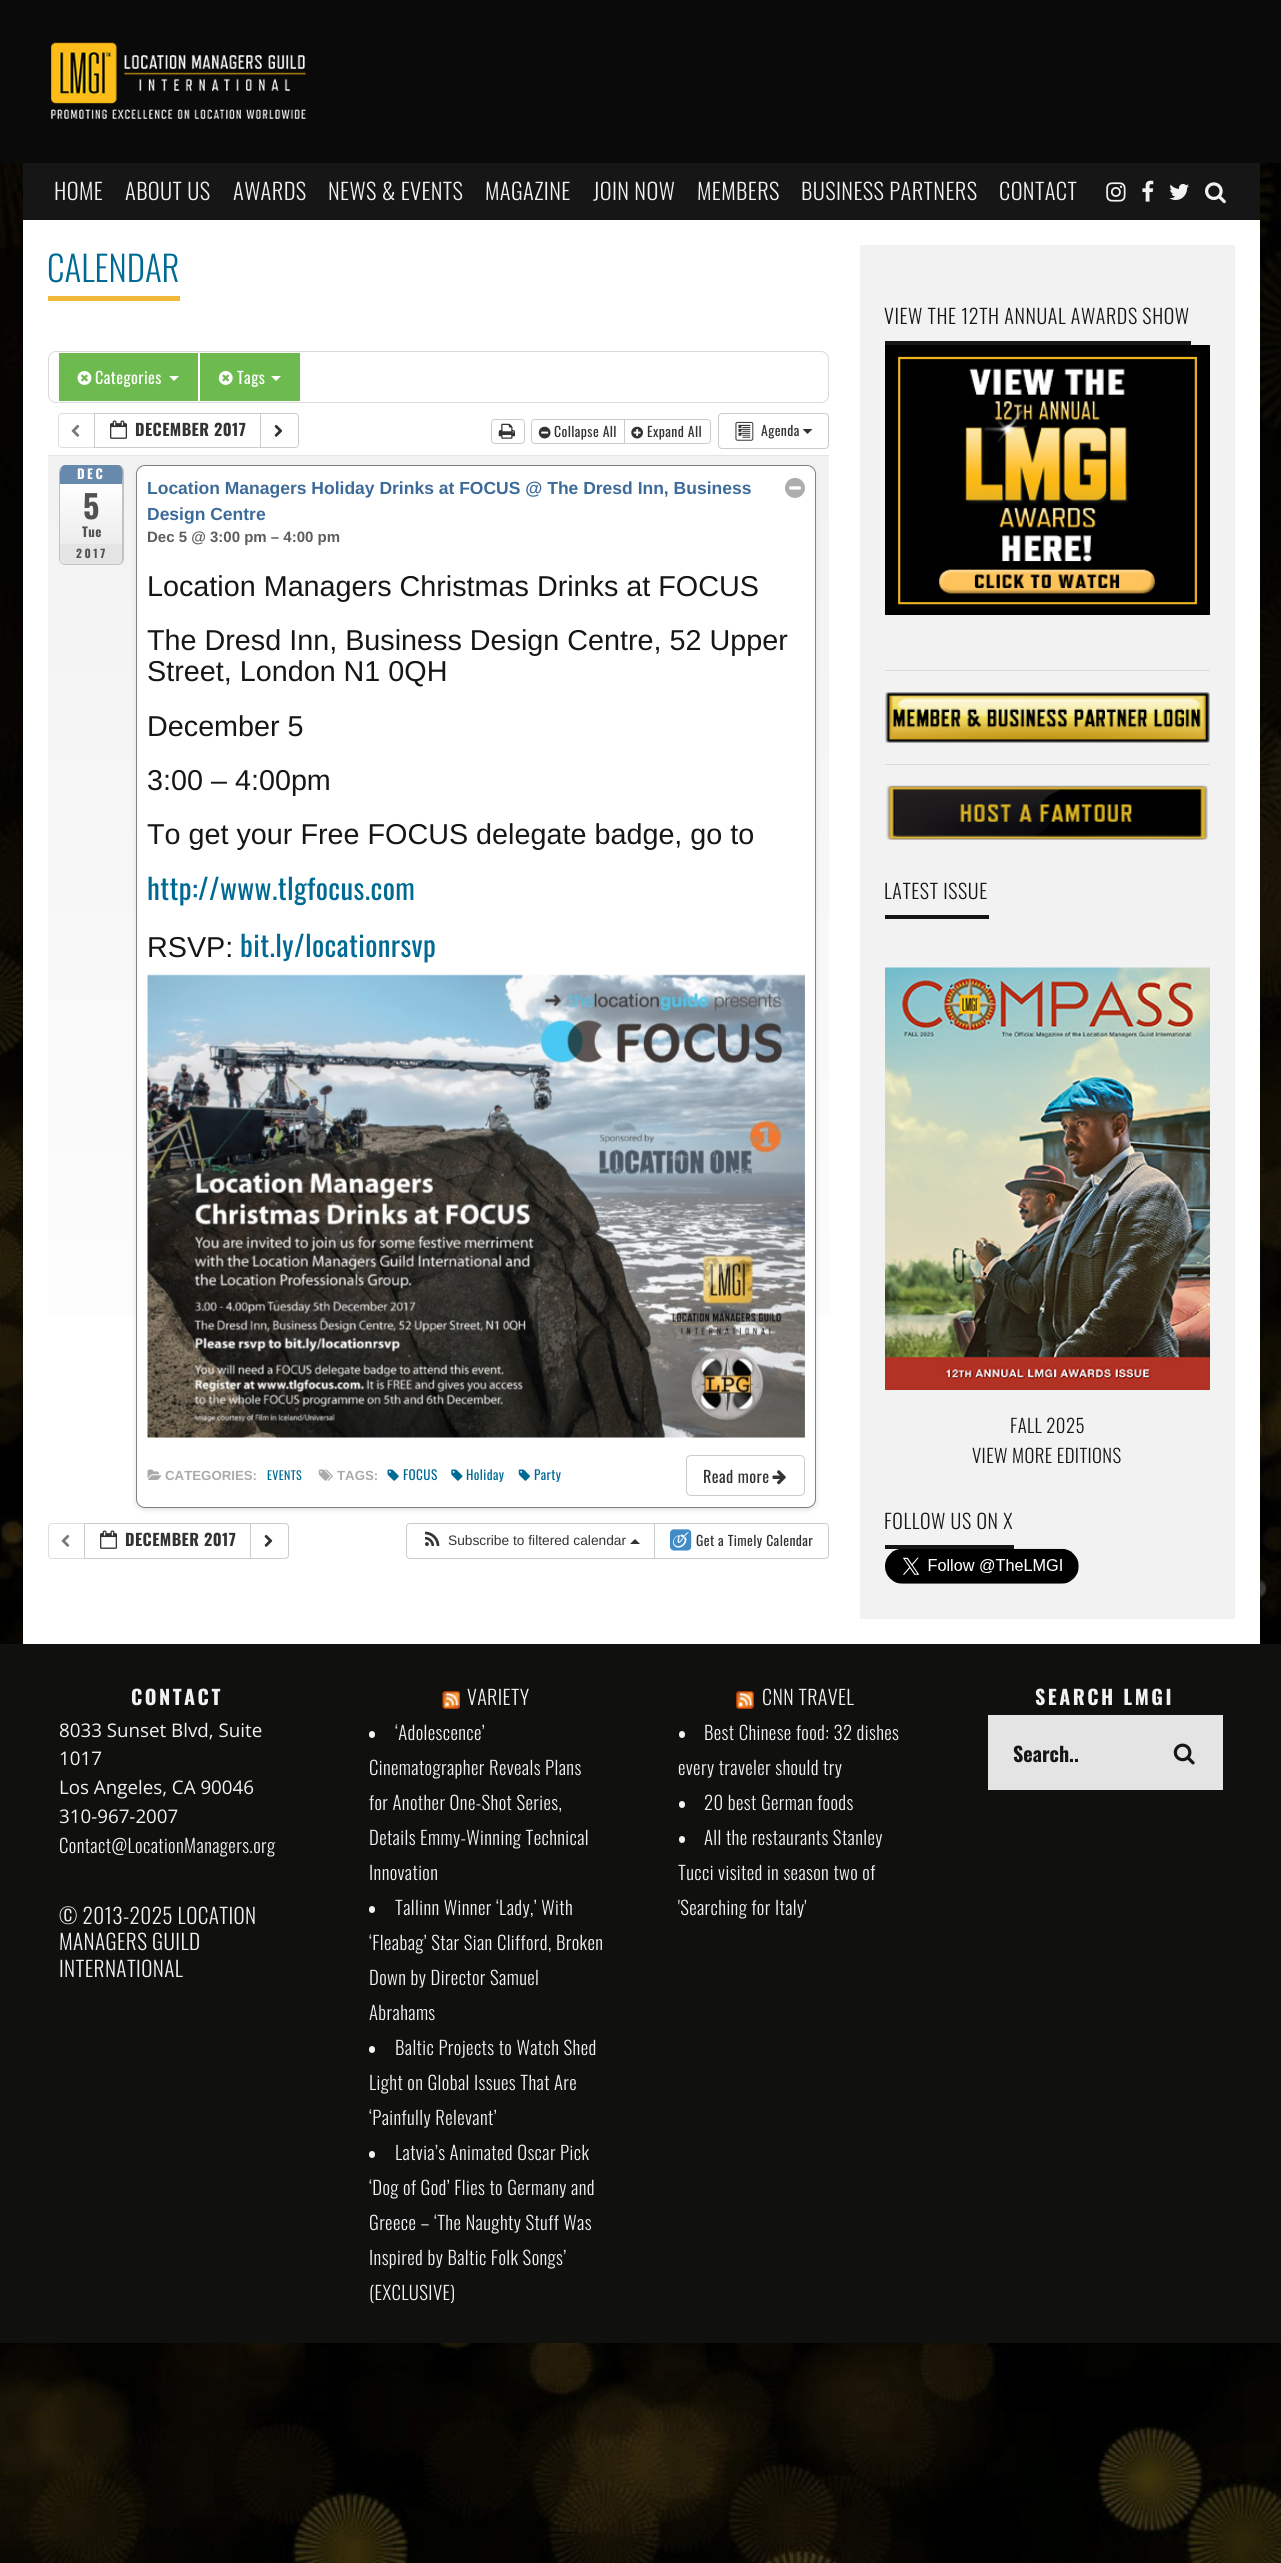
#include <cairo/cairo.h>
#include <math.h>
#include <stddef.h>


static void draw_spaced(cairo_t *cr, double x, double y, const char *s, double letter, double word) {
  cairo_move_to(cr, x, y);
  while (*s) {
    char ch[5] = {0};
    int n = 0;
    do ch[n++] = *s++; while ((*s & 0xC0) == 0x80);
    cairo_show_text(cr, ch);
    cairo_rel_move_to(cr, letter + word * (*ch == ' '), 0);
  }
}

static void rounded_rect(cairo_t *cr, double x, double y, double w, double h, double r) {
  cairo_new_sub_path(cr);
  cairo_arc(cr, x + w - r, y + h - r, r, 0, M_PI / 2);
  cairo_arc(cr, x + r, y + h - r, r, M_PI / 2, M_PI);
  cairo_arc(cr, x + r, y + r, r, M_PI, 1.5 * M_PI);
  cairo_arc(cr, x + w - r, y + r, r, 1.5 * M_PI, 2 * M_PI);
  cairo_close_path(cr);
}

static void draw_shadow(cairo_t *cr, double x, double y, double w, double h, double r, double blur, double alpha) {
  cairo_push_group_with_content(cr, CAIRO_CONTENT_ALPHA);
  cairo_set_operator(cr, CAIRO_OPERATOR_SOURCE);
  for (int i = 15; i >= -15 && fmin(w, h) + blur * i / 3 > 0; i -= 2) {
    double e = blur * i / 6;
    cairo_set_source_rgba(cr, 0, 0, 0, alpha * erfc((i - 1) / 8.5) / 2);
    rounded_rect(cr, x - e, y - e, w + 2 * e, h + 2 * e, fmax(0, fmin(r + e + blur * .6, fmin(w, h) / 2 + e)));
    cairo_fill(cr);
  }
  cairo_pattern_t *soft = cairo_pop_group(cr);
  cairo_mask(cr, soft);
  cairo_pattern_destroy(soft);
}

static void draw_image(cairo_t *cr, const char *path, double x, double y, double w, double h) {
  cairo_surface_t *image = cairo_image_surface_create_from_png(path);
  cairo_save(cr);
  cairo_set_source_surface(cr, image, x, y);
  cairo_rectangle(cr, x, y, w, h);
  cairo_fill(cr);
  cairo_restore(cr);
  cairo_surface_destroy(image);
}

static void draw(cairo_t *cr) {
  cairo_pattern_t *gradient;
  cairo_set_source_rgb(cr, 1, 1, 1);
  cairo_paint(cr);
  draw_image(cr, "images/1.png", 0, 163, 1281, 2400);
  cairo_set_source_rgb(cr, 10 / 255.0, 10 / 255.0, 10 / 255.0);
  cairo_rectangle(cr, 0, 0, 1281, 163);
  cairo_fill(cr);
  draw_image(cr, "images/2.png", 51, 42, 255, 77);
  cairo_set_source_rgb(cr, 22 / 255.0, 22 / 255.0, 22 / 255.0);
  cairo_rectangle(cr, 23, 163, 1237, 57);
  cairo_fill(cr);
  draw_image(cr, "images/3.png", 1106, 182, 20, 20);
  draw_image(cr, "images/4.png", 1142, 180, 12, 22);
  draw_image(cr, "images/5.png", 1169, 183, 20, 17);
  draw_image(cr, "images/6.png", 1205, 182, 21, 22);
  cairo_set_source_rgb(cr, 1, 1, 1);
  cairo_rectangle(cr, 23, 220, 1237, 1424);
  cairo_fill(cr);
  cairo_set_source_rgb(cr, 241 / 255.0, 185 / 255.0, 58 / 255.0);
  cairo_rectangle(cr, 48, 296, 132, 5);
  cairo_fill(cr);
  rounded_rect(cr, 48.5, 351.5, 780, 51, 7.5);
  cairo_set_source_rgb(cr, 219 / 255.0, 219 / 255.0, 219 / 255.0);
  cairo_set_line_width(cr, 1);
  cairo_stroke(cr);
  cairo_set_source_rgb(cr, 109 / 255.0, 187 / 255.0, 79 / 255.0);
  cairo_rectangle(cr, 59, 353, 139, 48);
  cairo_fill(cr);
  draw_image(cr, "images/7.png", 77, 371, 15, 14);
  cairo_set_source_rgb(cr, 1, 1, 1);
  cairo_new_path(cr);
  cairo_move_to(cr, 169, 376);
  cairo_line_to(cr, 179, 376);
  cairo_line_to(cr, 174, 381);
  cairo_close_path(cr);
  cairo_fill(cr);
  cairo_set_source_rgb(cr, 109 / 255.0, 187 / 255.0, 79 / 255.0);
  cairo_rectangle(cr, 200, 353, 100, 48);
  cairo_fill(cr);
  draw_image(cr, "images/8.png", 218, 371, 15, 14);
  cairo_set_source_rgb(cr, 1, 1, 1);
  cairo_new_path(cr);
  cairo_move_to(cr, 271, 376);
  cairo_line_to(cr, 281, 376);
  cairo_line_to(cr, 276, 381);
  cairo_close_path(cr);
  cairo_fill(cr);
  cairo_new_path(cr);
  cairo_move_to(cr, 62, 413.5);
  cairo_line_to(cr, 94.5, 413.5);
  cairo_line_to(cr, 94.5, 447.5);
  cairo_line_to(cr, 62, 447.5);
  cairo_curve_to(cr, 60, 447.5, 58.5, 446, 58.5, 444);
  cairo_line_to(cr, 58.5, 417);
  cairo_curve_to(cr, 58.5, 415, 60, 413.5, 62, 413.5);
  cairo_close_path(cr);
  cairo_set_source_rgb(cr, 222 / 255.0, 222 / 255.0, 222 / 255.0);
  cairo_stroke(cr);
  draw_image(cr, "images/9.png", 71, 424, 9, 13);
  cairo_rectangle(cr, 94.5, 413.5, 166, 34);
  cairo_set_source_rgb(cr, 204 / 255.0, 204 / 255.0, 204 / 255.0);
  cairo_stroke(cr);
  draw_image(cr, "images/10.png", 110, 420, 18, 19);
  cairo_set_source_rgb(cr, 1, 1, 1);
  cairo_new_path(cr);
  cairo_move_to(cr, 260.5, 413.5);
  cairo_line_to(cr, 295, 413.5);
  cairo_curve_to(cr, 297, 413.5, 298.5, 415, 298.5, 417);
  cairo_line_to(cr, 298.5, 444);
  cairo_curve_to(cr, 298.5, 446, 297, 447.5, 295, 447.5);
  cairo_line_to(cr, 260.5, 447.5);
  cairo_close_path(cr);
  cairo_fill_preserve(cr);
  cairo_set_source_rgb(cr, 204 / 255.0, 204 / 255.0, 204 / 255.0);
  cairo_stroke(cr);
  draw_image(cr, "images/11.png", 274, 424, 9, 13);
  rounded_rect(cr, 491.5, 419.5, 33, 24, 3.5);
  cairo_stroke(cr);
  draw_image(cr, "images/12.png", 498, 423, 17, 16);
  cairo_new_path(cr);
  cairo_move_to(cr, 535, 419.5);
  cairo_line_to(cr, 624.5, 419.5);
  cairo_line_to(cr, 624.5, 443.5);
  cairo_line_to(cr, 535, 443.5);
  cairo_curve_to(cr, 533, 443.5, 531.5, 442, 531.5, 440);
  cairo_line_to(cr, 531.5, 423);
  cairo_curve_to(cr, 531.5, 421, 533, 419.5, 535, 419.5);
  cairo_close_path(cr);
  cairo_stroke(cr);
  draw_image(cr, "images/13.png", 538, 426, 13, 13);
  cairo_set_source_rgb(cr, 1, 1, 1);
  cairo_new_path(cr);
  cairo_move_to(cr, 624.5, 419.5);
  cairo_line_to(cr, 707, 419.5);
  cairo_curve_to(cr, 709, 419.5, 710.5, 421, 710.5, 423);
  cairo_line_to(cr, 710.5, 440);
  cairo_curve_to(cr, 710.5, 442, 709, 443.5, 707, 443.5);
  cairo_line_to(cr, 624.5, 443.5);
  cairo_close_path(cr);
  cairo_fill_preserve(cr);
  cairo_set_source_rgb(cr, 204 / 255.0, 204 / 255.0, 204 / 255.0);
  cairo_stroke(cr);
  draw_image(cr, "images/14.png", 631, 426, 12, 13);
  rounded_rect(cr, 718.5, 413.5, 110, 35, 3.5);
  cairo_stroke(cr);
  draw_image(cr, "images/15.png", 735, 421, 19, 20);
  cairo_set_source_rgb(cr, 51 / 255.0, 51 / 255.0, 51 / 255.0);
  cairo_new_path(cr);
  cairo_move_to(cr, 802.5, 429);
  cairo_line_to(cr, 812.5, 429);
  cairo_line_to(cr, 807.5, 434);
  cairo_close_path(cr);
  cairo_fill(cr);
  gradient = cairo_pattern_create_linear(438, 456, 438, 1515);
  cairo_pattern_add_color_stop_rgba(gradient, 0, 242 / 255.0, 242 / 255.0, 242 / 255.0, 1);
  cairo_pattern_add_color_stop_rgba(gradient, 0.02, 242 / 255.0, 242 / 255.0, 242 / 255.0, 1);
  cairo_pattern_add_color_stop_rgba(gradient, 1, 1, 1, 1, 1);
  cairo_set_source(cr, gradient);
  cairo_pattern_destroy(gradient);
  cairo_rectangle(cr, 48, 456, 781, 859);
  cairo_fill(cr);
  cairo_set_source_rgb(cr, 229 / 255.0, 229 / 255.0, 229 / 255.0);
  cairo_rectangle(cr, 48, 455, 781, 1);
  cairo_fill(cr);
  cairo_save(cr);
  rounded_rect(cr, 59, 465, 65, 100, 6);
  cairo_clip(cr);
  gradient = cairo_pattern_create_linear(91, 465, 91, 564);
  cairo_pattern_add_color_stop_rgba(gradient, 0, 1, 1, 1, 1);
  cairo_pattern_add_color_stop_rgba(gradient, 0.16, 1, 1, 1, 1);
  cairo_pattern_add_color_stop_rgba(gradient, 1, 231 / 255.0, 231 / 255.0, 231 / 255.0, 1);
  cairo_set_source(cr, gradient);
  cairo_pattern_destroy(gradient);
  cairo_rectangle(cr, 60, 465, 63, 99);
  cairo_fill(cr);
  cairo_restore(cr);
  cairo_set_source_rgb(cr, 194 / 255.0, 194 / 255.0, 194 / 255.0);
  cairo_set_fill_rule(cr, CAIRO_FILL_RULE_EVEN_ODD);
  cairo_new_path(cr);
  cairo_move_to(cr, 65, 465);
  cairo_line_to(cr, 118, 465);
  cairo_curve_to(cr, 121, 465, 124, 468, 124, 471);
  cairo_line_to(cr, 124, 559);
  cairo_curve_to(cr, 124, 562, 121, 565, 118, 565);
  cairo_line_to(cr, 65, 565);
  cairo_curve_to(cr, 62, 565, 59, 562, 59, 559);
  cairo_line_to(cr, 59, 471);
  cairo_curve_to(cr, 59, 468, 62, 465, 65, 465);
  cairo_close_path(cr);
  cairo_move_to(cr, 65, 465);
  cairo_line_to(cr, 118, 465);
  cairo_curve_to(cr, 120, 465, 122, 468, 122, 471);
  cairo_line_to(cr, 122, 559);
  cairo_curve_to(cr, 122, 562, 120, 564, 118, 564);
  cairo_line_to(cr, 65, 564);
  cairo_curve_to(cr, 62, 564, 60, 562, 60, 559);
  cairo_line_to(cr, 60, 471);
  cairo_curve_to(cr, 60, 468, 62, 465, 65, 465);
  cairo_close_path(cr);
  cairo_fill(cr);
  cairo_set_source_rgb(cr, 102 / 255.0, 137 / 255.0, 172 / 255.0);
  cairo_set_fill_rule(cr, CAIRO_FILL_RULE_WINDING);
  cairo_new_path(cr);
  cairo_move_to(cr, 65, 465);
  cairo_curve_to(cr, 58, 465, 60, 480, 60, 484);
  cairo_line_to(cr, 122, 484);
  cairo_curve_to(cr, 122, 480, 125, 465, 118, 465);
  cairo_close_path(cr);
  cairo_fill(cr);
  cairo_set_source_rgb(cr, 228 / 255.0, 228 / 255.0, 228 / 255.0);
  cairo_new_path(cr);
  cairo_move_to(cr, 60, 544);
  cairo_line_to(cr, 60, 559);
  cairo_curve_to(cr, 60, 562, 62, 564, 65, 564);
  cairo_line_to(cr, 118, 564);
  cairo_curve_to(cr, 120, 564, 122, 562, 122, 559);
  cairo_line_to(cr, 122, 544);
  cairo_close_path(cr);
  cairo_fill(cr);
  cairo_set_source_rgb(cr, 224 / 255.0, 224 / 255.0, 224 / 255.0);
  draw_shadow(cr, 136, 468, 680, 1042, 9, 2.5, 1);
  cairo_set_source_rgb(cr, 1, 1, 1);
  rounded_rect(cr, 136.5, 465.5, 679, 1042, 8.5);
  cairo_fill_preserve(cr);
  cairo_set_source_rgb(cr, 128 / 255.0, 128 / 255.0, 128 / 255.0);
  cairo_stroke(cr);
  draw_image(cr, "images/16.png", 785, 477, 20, 21);
  draw_image(cr, "images/17.png", 147, 974, 658, 464);
  draw_image(cr, "images/18.png", 147, 1469, 15, 11);
  draw_image(cr, "images/19.png", 318, 1469, 15, 12);
  draw_image(cr, "images/20.png", 387, 1469, 12, 12);
  draw_image(cr, "images/21.png", 451, 1469, 12, 12);
  draw_image(cr, "images/22.png", 518, 1469, 12, 12);
  rounded_rect(cr, 686.5, 1455.5, 118, 40, 4.5);
  cairo_set_source_rgb(cr, 204 / 255.0, 204 / 255.0, 204 / 255.0);
  cairo_stroke(cr);
  draw_image(cr, "images/23.png", 772, 1470, 14, 15);
  cairo_new_path(cr);
  cairo_move_to(cr, 52, 1523.5);
  cairo_line_to(cr, 84.5, 1523.5);
  cairo_line_to(cr, 84.5, 1558.5);
  cairo_line_to(cr, 52, 1558.5);
  cairo_curve_to(cr, 50, 1558.5, 48.5, 1557, 48.5, 1555);
  cairo_line_to(cr, 48.5, 1527);
  cairo_curve_to(cr, 48.5, 1525, 50, 1523.5, 52, 1523.5);
  cairo_close_path(cr);
  cairo_set_source_rgb(cr, 222 / 255.0, 222 / 255.0, 222 / 255.0);
  cairo_stroke(cr);
  draw_image(cr, "images/9.png", 61, 1534, 9, 13);
  cairo_rectangle(cr, 84.5, 1523.5, 166, 35);
  cairo_set_source_rgb(cr, 204 / 255.0, 204 / 255.0, 204 / 255.0);
  cairo_stroke(cr);
  draw_image(cr, "images/10.png", 100, 1530, 18, 19);
  cairo_set_source_rgb(cr, 1, 1, 1);
  cairo_new_path(cr);
  cairo_move_to(cr, 250.5, 1523.5);
  cairo_line_to(cr, 285, 1523.5);
  cairo_curve_to(cr, 287, 1523.5, 288.5, 1525, 288.5, 1527);
  cairo_line_to(cr, 288.5, 1555);
  cairo_curve_to(cr, 288.5, 1557, 287, 1558.5, 285, 1558.5);
  cairo_line_to(cr, 250.5, 1558.5);
  cairo_close_path(cr);
  cairo_fill_preserve(cr);
  cairo_set_source_rgb(cr, 204 / 255.0, 204 / 255.0, 204 / 255.0);
  cairo_stroke(cr);
  draw_image(cr, "images/11.png", 264, 1534, 9, 13);
  cairo_new_path(cr);
  cairo_move_to(cr, 410, 1523.5);
  cairo_line_to(cr, 654.5, 1523.5);
  cairo_line_to(cr, 654.5, 1558.5);
  cairo_line_to(cr, 410, 1558.5);
  cairo_curve_to(cr, 408, 1558.5, 406.5, 1557, 406.5, 1555);
  cairo_line_to(cr, 406.5, 1527);
  cairo_curve_to(cr, 406.5, 1525, 408, 1523.5, 410, 1523.5);
  cairo_close_path(cr);
  cairo_stroke(cr);
  draw_image(cr, "images/24.png", 425, 1531, 15, 15);
  cairo_set_source_rgb(cr, 51 / 255.0, 51 / 255.0, 51 / 255.0);
  cairo_new_path(cr);
  cairo_move_to(cr, 640, 1544);
  cairo_line_to(cr, 630, 1544);
  cairo_line_to(cr, 635, 1539);
  cairo_close_path(cr);
  cairo_fill(cr);
  cairo_set_source_rgb(cr, 1, 1, 1);
  cairo_new_path(cr);
  cairo_move_to(cr, 654.5, 1523.5);
  cairo_line_to(cr, 825, 1523.5);
  cairo_curve_to(cr, 827, 1523.5, 828.5, 1525, 828.5, 1527);
  cairo_line_to(cr, 828.5, 1555);
  cairo_curve_to(cr, 828.5, 1557, 827, 1558.5, 825, 1558.5);
  cairo_line_to(cr, 654.5, 1558.5);
  cairo_close_path(cr);
  cairo_fill_preserve(cr);
  cairo_set_source_rgb(cr, 204 / 255.0, 204 / 255.0, 204 / 255.0);
  cairo_stroke(cr);
  draw_image(cr, "images/25.png", 670, 1529, 22, 22);
  cairo_set_source_rgb(cr, 242 / 255.0, 242 / 255.0, 242 / 255.0);
  cairo_rectangle(cr, 860, 245, 375, 1374);
  cairo_fill(cr);
  cairo_set_source_rgb(cr, 22 / 255.0, 22 / 255.0, 22 / 255.0);
  cairo_rectangle(cr, 885, 341, 306, 4);
  cairo_fill(cr);
  draw_image(cr, "images/26.png", 885, 345, 325, 270);
  cairo_set_source_rgb(cr, 218 / 255.0, 218 / 255.0, 218 / 255.0);
  cairo_rectangle(cr, 885, 670, 325, 1);
  cairo_fill(cr);
  draw_image(cr, "images/27.png", 885, 692, 325, 51);
  cairo_rectangle(cr, 885, 764, 325, 1);
  cairo_fill(cr);
  draw_image(cr, "images/28.png", 886, 785, 322, 55);
  cairo_set_source_rgb(cr, 22 / 255.0, 22 / 255.0, 22 / 255.0);
  cairo_rectangle(cr, 885, 915, 104, 4);
  cairo_fill(cr);
  draw_image(cr, "images/29.png", 885, 967, 325, 423);
  draw_image(cr, "images/30.png", 885, 1548, 194, 36);
  cairo_rectangle(cr, 885, 1545, 129, 4);
  cairo_fill(cr);
  cairo_set_source_rgb(cr, 16 / 255.0, 16 / 255.0, 15 / 255.0);
  cairo_rectangle(cr, 0, 1644, 1281, 699);
  cairo_fill(cr);
  draw_image(cr, "images/31.png", 442, 1691, 18, 18);
  cairo_set_source_rgb(cr, 242 / 255.0, 242 / 255.0, 242 / 255.0);
  rounded_rect(cr, 369, 1731, 6, 7, 3);
  cairo_fill(cr);
  rounded_rect(cr, 369, 1906, 6, 7, 3);
  cairo_fill(cr);
  rounded_rect(cr, 369, 2046, 6, 7, 3);
  cairo_fill(cr);
  rounded_rect(cr, 369, 2151, 6, 7, 3);
  cairo_fill(cr);
  draw_image(cr, "images/32.png", 736, 1691, 18, 18);
  rounded_rect(cr, 679, 1731, 6, 7, 3);
  cairo_fill(cr);
  rounded_rect(cr, 679, 1801, 6, 7, 3);
  cairo_fill(cr);
  rounded_rect(cr, 679, 1836, 6, 7, 3);
  cairo_fill(cr);
  cairo_set_source_rgb(cr, 228 / 255.0, 228 / 255.0, 228 / 255.0);
  cairo_rectangle(cr, 988, 1715, 235, 75);
  cairo_fill(cr);
  draw_image(cr, "images/33.png", 1173, 1743, 22, 22);
  cairo_select_font_face(cr, "Oswald Light", CAIRO_FONT_SLANT_NORMAL, CAIRO_FONT_WEIGHT_NORMAL);
  cairo_set_font_size(cr, 22.5);
  cairo_set_source_rgb(cr, 242 / 255.0, 242 / 255.0, 242 / 255.0);
  draw_spaced(cr, 54, 200, "HOME", 0.4, 0);
  draw_spaced(cr, 125, 200, "ABOUT US", 0.4, 0);
  draw_spaced(cr, 233, 200, "AWARDS", 0.4, 0);
  draw_spaced(cr, 328, 200, "NEWS & EVENTS", 0.4, 0);
  draw_spaced(cr, 485, 200, "MAGAZINE", 0.4, 0);
  draw_spaced(cr, 593, 200, "JOIN NOW", 0.4, 0);
  draw_spaced(cr, 697, 200, "MEMBERS", 0.4, 0);
  draw_spaced(cr, 801, 200, "BUSINESS PARTNERS", 0.4, 0);
  draw_spaced(cr, 999, 200, "CONTACT", 0.4, 0);
  cairo_set_font_size(cr, 35);
  cairo_set_source_rgb(cr, 0, 106 / 255.0, 147 / 255.0);
  cairo_move_to(cr, 47, 282);
  cairo_show_text(cr, "CALENDAR");
  cairo_select_font_face(cr, "Oswald", CAIRO_FONT_SLANT_NORMAL, CAIRO_FONT_WEIGHT_NORMAL);
  cairo_set_font_size(cr, 16.25);
  cairo_set_source_rgb(cr, 1, 1, 1);
  draw_spaced(cr, 95, 384, "Categories", 0.4, 0);
  draw_spaced(cr, 237, 384, "Tags", 0.4, 0);
  cairo_select_font_face(cr, "Oswald", CAIRO_FONT_SLANT_NORMAL, CAIRO_FONT_WEIGHT_BOLD);
  cairo_set_source_rgb(cr, 51 / 255.0, 51 / 255.0, 51 / 255.0);
  draw_spaced(cr, 135, 436, "DECEMBER 2017", 0.4, 0);
  cairo_select_font_face(cr, "Oswald", CAIRO_FONT_SLANT_NORMAL, CAIRO_FONT_WEIGHT_NORMAL);
  cairo_set_font_size(cr, 13.75);
  draw_spaced(cr, 554, 437, "Collapse All", 0.4, 0);
  draw_spaced(cr, 647, 437, "Expand All", 0.4, 0);
  draw_spaced(cr, 761, 436, "Agenda", 0.4, 0);
  cairo_select_font_face(cr, "Oswald", CAIRO_FONT_SLANT_NORMAL, CAIRO_FONT_WEIGHT_BOLD);
  cairo_set_font_size(cr, 13);
  cairo_set_source_rgb(cr, 1, 1, 1);
  draw_spaced(cr, 77, 479, "DEC", 2.5, 0);
  cairo_set_font_size(cr, 32);
  cairo_set_source_rgb(cr, 82 / 255.0, 82 / 255.0, 82 / 255.0);
  draw_spaced(cr, 83, 519, "5", 0.4, 0);
  cairo_set_font_size(cr, 13);
  draw_spaced(cr, 82, 537, "Tue", 0.4, 0);
  cairo_set_font_size(cr, 11.5);
  draw_spaced(cr, 76, 558, "2017", 2.5, 0);
  cairo_select_font_face(cr, "Liberation Sans", CAIRO_FONT_SLANT_NORMAL, CAIRO_FONT_WEIGHT_BOLD);
  cairo_set_font_size(cr, 17.5);
  cairo_set_source_rgb(cr, 61 / 255.0, 107 / 255.0, 153 / 255.0);
  cairo_move_to(cr, 147, 494);
  cairo_show_text(cr, "Location Managers Holiday Drinks at FOCUS @ The Dresd Inn, Business");
  cairo_move_to(cr, 147, 520);
  cairo_show_text(cr, "Design Centre");
  cairo_set_font_size(cr, 15);
  cairo_set_source_rgb(cr, 92 / 255.0, 92 / 255.0, 92 / 255.0);
  cairo_move_to(cr, 147, 542);
  cairo_show_text(cr, "Dec 5 @ 3:00 pm – 4:00 pm");
  cairo_select_font_face(cr, "Liberation Sans", CAIRO_FONT_SLANT_NORMAL, CAIRO_FONT_WEIGHT_NORMAL);
  cairo_set_font_size(cr, 28.75);
  cairo_set_source_rgb(cr, 22 / 255.0, 22 / 255.0, 22 / 255.0);
  cairo_move_to(cr, 147, 596);
  cairo_show_text(cr, "Location Managers Christmas Drinks at FOCUS");
  cairo_move_to(cr, 147, 650);
  cairo_show_text(cr, "The Dresd Inn, Business Design Centre, 52 Upper");
  cairo_move_to(cr, 147, 681);
  cairo_show_text(cr, "Street, London N1 0QH");
  cairo_move_to(cr, 147, 736);
  cairo_show_text(cr, "December 5");
  cairo_move_to(cr, 147, 790);
  cairo_show_text(cr, "3:00 – 4:00pm");
  cairo_move_to(cr, 147, 844);
  cairo_show_text(cr, "To get your Free FOCUS delegate badge, go to");
  cairo_select_font_face(cr, "Oswald", CAIRO_FONT_SLANT_NORMAL, CAIRO_FONT_WEIGHT_NORMAL);
  cairo_set_source_rgb(cr, 0, 106 / 255.0, 147 / 255.0);
  draw_spaced(cr, 147, 900, "http://www.tlgfocus.com", 0.4, 0);
  cairo_select_font_face(cr, "Liberation Sans", CAIRO_FONT_SLANT_NORMAL, CAIRO_FONT_WEIGHT_NORMAL);
  cairo_set_source_rgb(cr, 22 / 255.0, 22 / 255.0, 22 / 255.0);
  cairo_move_to(cr, 147, 957);
  cairo_show_text(cr, "RSVP:");
  cairo_select_font_face(cr, "Oswald", CAIRO_FONT_SLANT_NORMAL, CAIRO_FONT_WEIGHT_NORMAL);
  cairo_set_source_rgb(cr, 0, 106 / 255.0, 147 / 255.0);
  draw_spaced(cr, 240, 957, "bit.ly/locationrsvp", 0.4, 0);
  cairo_select_font_face(cr, "Liberation Sans", CAIRO_FONT_SLANT_NORMAL, CAIRO_FONT_WEIGHT_BOLD);
  cairo_set_font_size(cr, 13.25);
  cairo_set_source_rgb(cr, 170 / 255.0, 170 / 255.0, 170 / 255.0);
  cairo_move_to(cr, 165, 1480);
  cairo_show_text(cr, "CATEGORIES:");
  cairo_select_font_face(cr, "Oswald", CAIRO_FONT_SLANT_NORMAL, CAIRO_FONT_WEIGHT_NORMAL);
  cairo_set_font_size(cr, 12);
  cairo_set_source_rgb(cr, 0, 106 / 255.0, 147 / 255.0);
  draw_spaced(cr, 267, 1480, "EVENTS", 0.4, 0);
  cairo_select_font_face(cr, "Liberation Sans", CAIRO_FONT_SLANT_NORMAL, CAIRO_FONT_WEIGHT_BOLD);
  cairo_set_font_size(cr, 13.25);
  cairo_set_source_rgb(cr, 170 / 255.0, 170 / 255.0, 170 / 255.0);
  cairo_move_to(cr, 337, 1480);
  cairo_show_text(cr, "TAGS:");
  cairo_select_font_face(cr, "Oswald", CAIRO_FONT_SLANT_NORMAL, CAIRO_FONT_WEIGHT_NORMAL);
  cairo_set_source_rgb(cr, 0, 106 / 255.0, 147 / 255.0);
  draw_spaced(cr, 403, 1480, "FOCUS", 0.4, 0);
  draw_spaced(cr, 466, 1480, "Holiday", 0.4, 0);
  draw_spaced(cr, 534, 1480, "Party", 0.4, 0);
  cairo_set_font_size(cr, 16.25);
  cairo_set_source_rgb(cr, 51 / 255.0, 51 / 255.0, 51 / 255.0);
  draw_spaced(cr, 703, 1483, "Read more", 0.4, 0);
  cairo_select_font_face(cr, "Oswald", CAIRO_FONT_SLANT_NORMAL, CAIRO_FONT_WEIGHT_BOLD);
  draw_spaced(cr, 125, 1546, "DECEMBER 2017", 0.4, 0);
  cairo_select_font_face(cr, "Liberation Sans", CAIRO_FONT_SLANT_NORMAL, CAIRO_FONT_WEIGHT_NORMAL);
  cairo_set_font_size(cr, 13.75);
  cairo_move_to(cr, 448, 1545);
  cairo_show_text(cr, "Subscribe to filtered calendar");
  cairo_select_font_face(cr, "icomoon", CAIRO_FONT_SLANT_NORMAL, CAIRO_FONT_WEIGHT_NORMAL);
  cairo_set_font_size(cr, 16);
  cairo_set_source_rgb(cr, 1, 1, 1);
  draw_spaced(cr, 673, 1547, "!", 0.4, 0);
  cairo_select_font_face(cr, "Oswald", CAIRO_FONT_SLANT_NORMAL, CAIRO_FONT_WEIGHT_NORMAL);
  cairo_set_font_size(cr, 13.75);
  cairo_set_source_rgb(cr, 51 / 255.0, 51 / 255.0, 51 / 255.0);
  draw_spaced(cr, 696, 1546, "Get a Timely Calendar", 0.4, 0);
  cairo_select_font_face(cr, "Oswald Light", CAIRO_FONT_SLANT_NORMAL, CAIRO_FONT_WEIGHT_NORMAL);
  cairo_set_font_size(cr, 20);
  cairo_set_source_rgb(cr, 22 / 255.0, 22 / 255.0, 22 / 255.0);
  draw_spaced(cr, 884, 324, "VIEW THE 12TH ANNUAL AWARDS SHOW", 0.6, 0);
  draw_spaced(cr, 884, 899, "LATEST ISSUE", 0.6, 0);
  cairo_set_font_size(cr, 18.75);
  draw_spaced(cr, 1010, 1433, "FALL 2025", 0.4, 0);
  draw_spaced(cr, 972, 1463, "VIEW MORE EDITIONS", 0.4, 0);
  cairo_set_font_size(cr, 20);
  draw_spaced(cr, 884, 1529, "FOLLOW US ON X", 0.6, 0);
  cairo_select_font_face(cr, "Oswald", CAIRO_FONT_SLANT_NORMAL, CAIRO_FONT_WEIGHT_BOLD);
  cairo_set_source_rgb(cr, 242 / 255.0, 242 / 255.0, 242 / 255.0);
  draw_spaced(cr, 131, 1705, "CONTACT", 2.5, 0);
  cairo_select_font_face(cr, "Open Sans", CAIRO_FONT_SLANT_NORMAL, CAIRO_FONT_WEIGHT_NORMAL);
  cairo_set_font_size(cr, 18.75);
  cairo_move_to(cr, 59, 1737);
  cairo_show_text(cr, "8033 Sunset Blvd, Suite");
  cairo_move_to(cr, 59, 1765);
  cairo_show_text(cr, "1017");
  cairo_move_to(cr, 59, 1794);
  cairo_show_text(cr, "Los Angeles, CA 90046");
  cairo_move_to(cr, 59, 1823);
  cairo_show_text(cr, "310-967-2007");
  cairo_select_font_face(cr, "Oswald Light", CAIRO_FONT_SLANT_NORMAL, CAIRO_FONT_WEIGHT_NORMAL);
  draw_spaced(cr, 59, 1853, "Contact@LocationManagers.org", 0.4, 0);
  cairo_set_font_size(cr, 21.25);
  draw_spaced(cr, 59, 1924, "© 2013-2025 LOCATION", 0.4, 0);
  draw_spaced(cr, 59, 1950, "MANAGERS GUILD", 0.4, 0);
  draw_spaced(cr, 59, 1977, "INTERNATIONAL", 0.4, 0);
  cairo_set_font_size(cr, 20);
  draw_spaced(cr, 467, 1705, "VARIETY", 0.4, 0);
  cairo_set_font_size(cr, 18.75);
  draw_spaced(cr, 395, 1740, "‘Adolescence’", 0.4, 0);
  draw_spaced(cr, 369, 1775, "Cinematographer Reveals Plans", 0.4, 0);
  draw_spaced(cr, 369, 1810, "for Another One-Shot Series,", 0.4, 0);
  draw_spaced(cr, 369, 1845, "Details Emmy-Winning Technical", 0.4, 0);
  draw_spaced(cr, 369, 1880, "Innovation", 0.4, 0);
  draw_spaced(cr, 395, 1915, "Tallinn Winner ‘Lady,’ With", 0.4, 0);
  draw_spaced(cr, 369, 1950, "‘Fleabag’ Star Sian Clifford, Broken", 0.4, 0);
  draw_spaced(cr, 369, 1985, "Down by Director Samuel", 0.4, 0);
  draw_spaced(cr, 369, 2020, "Abrahams", 0.4, 0);
  draw_spaced(cr, 395, 2055, "Baltic Projects to Watch Shed", 0.4, 0);
  draw_spaced(cr, 369, 2090, "Light on Global Issues That Are", 0.4, 0);
  draw_spaced(cr, 369, 2125, "‘Painfully Relevant’", 0.4, 0);
  draw_spaced(cr, 395, 2160, "Latvia’s Animated Oscar Pick", 0.4, 0);
  draw_spaced(cr, 369, 2195, "‘Dog of God’ Flies to Germany and", 0.4, 0);
  draw_spaced(cr, 369, 2230, "Greece – ‘The Naughty Stuff Was", 0.4, 0);
  draw_spaced(cr, 369, 2265, "Inspired by Baltic Folk Songs’", 0.4, 0);
  draw_spaced(cr, 369, 2300, "(EXCLUSIVE)", 0.4, 0);
  cairo_set_font_size(cr, 20);
  draw_spaced(cr, 762, 1705, "CNN TRAVEL", 0.4, 0);
  cairo_set_font_size(cr, 18.75);
  draw_spaced(cr, 704, 1740, "Best Chinese food: 32 dishes", 0.4, 0);
  draw_spaced(cr, 678, 1775, "every traveler should try", 0.4, 0);
  draw_spaced(cr, 704, 1810, "20 best German foods", 0.4, 0);
  draw_spaced(cr, 704, 1845, "All the restaurants Stanley", 0.4, 0);
  draw_spaced(cr, 678, 1880, "Tucci visited in season two of", 0.4, 0);
  draw_spaced(cr, 678, 1915, "'Searching for Italy'", 0.4, 0);
  cairo_select_font_face(cr, "Oswald", CAIRO_FONT_SLANT_NORMAL, CAIRO_FONT_WEIGHT_BOLD);
  cairo_set_font_size(cr, 20);
  draw_spaced(cr, 1035, 1705, "SEARCH LMGI", 2.5, 0);
  cairo_set_source_rgb(cr, 22 / 255.0, 22 / 255.0, 22 / 255.0);
  cairo_move_to(cr, 1013, 1762);
  cairo_show_text(cr, "Search..");
}

int main(void) {
  cairo_surface_t *surface = cairo_image_surface_create(CAIRO_FORMAT_RGB24, 1281, 2563);
  cairo_t *cr = cairo_create(surface);
  cairo_font_options_t *options = cairo_font_options_create();
  cairo_font_options_set_hint_metrics(options, CAIRO_HINT_METRICS_OFF);
  cairo_font_options_set_hint_style(options, CAIRO_HINT_STYLE_NONE);
  cairo_set_font_options(cr, options);
  cairo_set_miter_limit(cr, 4);
  draw(cr);
  cairo_surface_write_to_png(surface, "out.png");
  cairo_font_options_destroy(options);
  cairo_destroy(cr);
  cairo_surface_destroy(surface);
  return 0;
}
